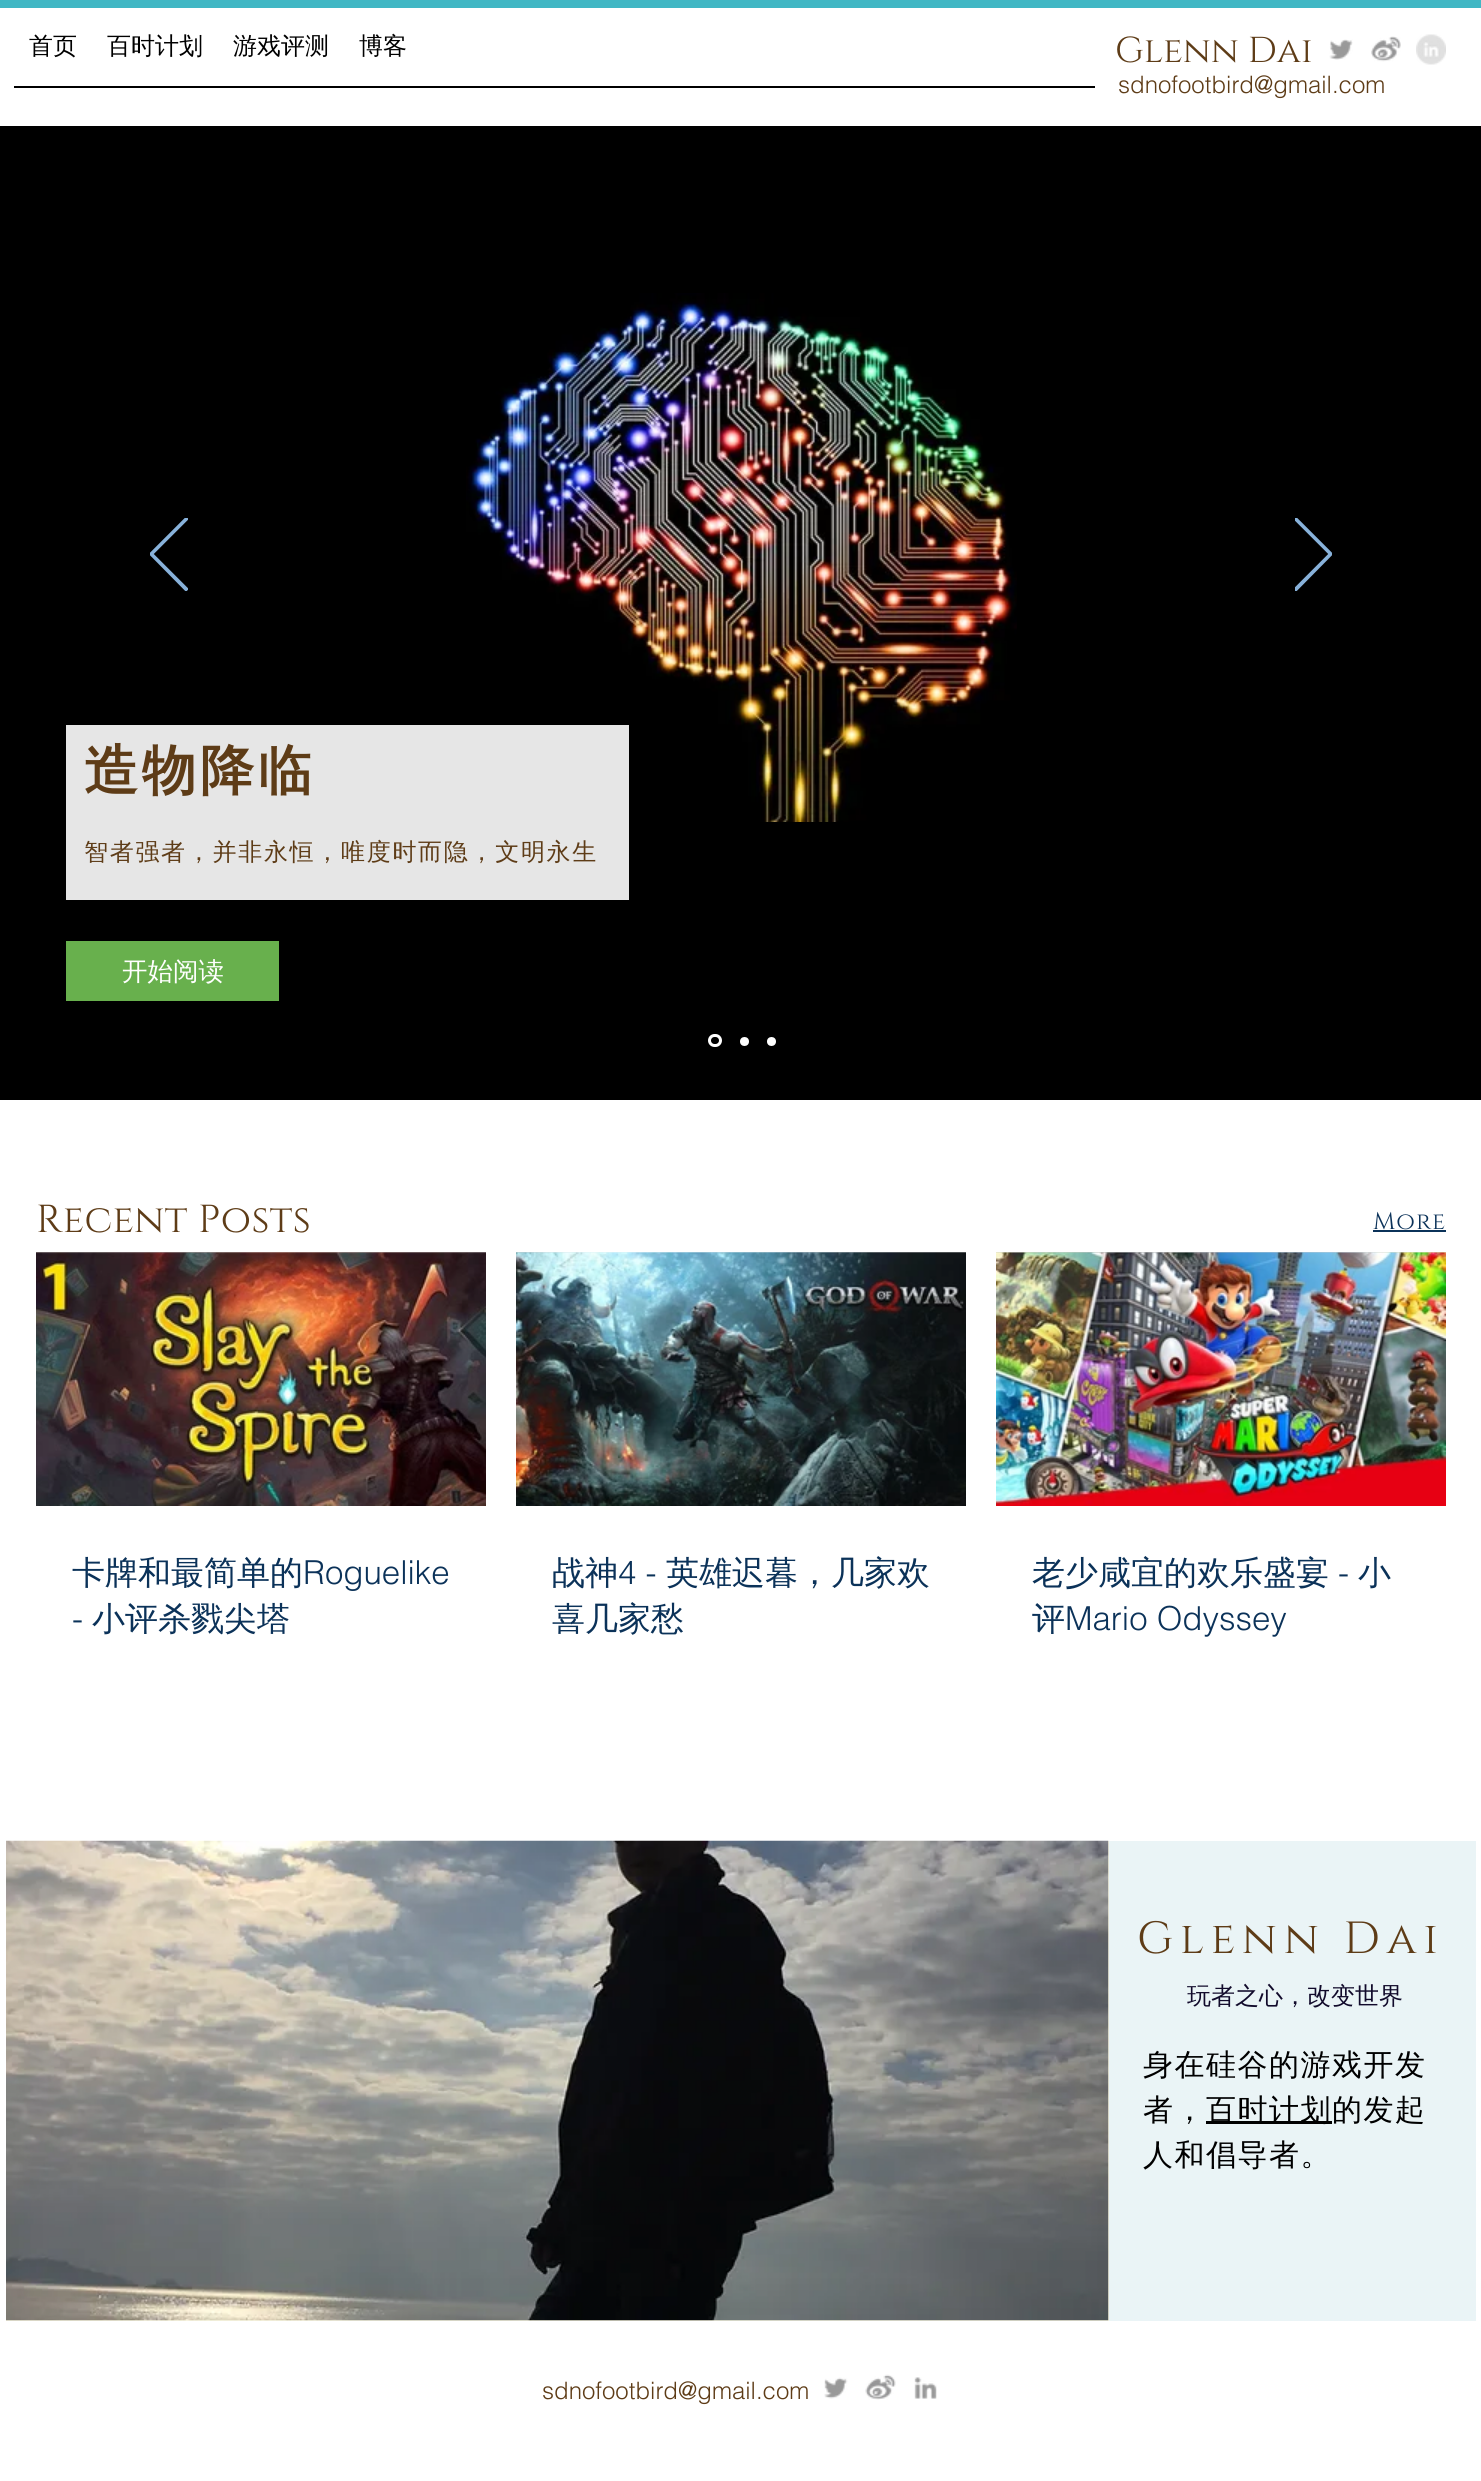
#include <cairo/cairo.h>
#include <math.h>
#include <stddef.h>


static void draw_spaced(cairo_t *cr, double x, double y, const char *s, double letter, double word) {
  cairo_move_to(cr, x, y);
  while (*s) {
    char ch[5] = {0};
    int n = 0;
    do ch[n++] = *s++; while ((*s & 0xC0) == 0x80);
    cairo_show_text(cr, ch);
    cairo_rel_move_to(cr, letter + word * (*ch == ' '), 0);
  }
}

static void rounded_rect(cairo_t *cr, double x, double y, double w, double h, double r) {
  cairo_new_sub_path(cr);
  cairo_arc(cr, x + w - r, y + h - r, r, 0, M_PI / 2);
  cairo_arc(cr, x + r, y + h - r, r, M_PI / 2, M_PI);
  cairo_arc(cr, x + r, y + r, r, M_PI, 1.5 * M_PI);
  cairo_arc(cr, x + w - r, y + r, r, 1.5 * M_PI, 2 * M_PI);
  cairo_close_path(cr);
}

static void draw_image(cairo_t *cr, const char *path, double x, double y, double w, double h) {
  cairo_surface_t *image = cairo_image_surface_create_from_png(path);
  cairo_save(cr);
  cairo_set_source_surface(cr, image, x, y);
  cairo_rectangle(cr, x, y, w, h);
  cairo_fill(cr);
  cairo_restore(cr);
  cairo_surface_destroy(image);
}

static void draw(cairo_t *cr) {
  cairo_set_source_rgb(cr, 1, 1, 1);
  cairo_paint(cr);
  cairo_set_source_rgb(cr, 65 / 255.0, 183 / 255.0, 196 / 255.0);
  cairo_rectangle(cr, 0, 0, 1481, 8);
  cairo_fill(cr);
  cairo_set_source_rgb(cr, 0, 0, 0);
  cairo_rectangle(cr, 14, 86, 1081, 2);
  cairo_fill(cr);
  draw_image(cr, "images/1.png", 1329, 39, 24, 21);
  draw_image(cr, "images/2.png", 1371, 36, 30, 26);
  draw_image(cr, "images/3.png", 1416, 34, 30, 31);
  cairo_rectangle(cr, 0, 126, 1481, 974);
  cairo_fill(cr);
  cairo_set_source_rgb(cr, 136 / 255.0, 178 / 255.0, 219 / 255.0);
  cairo_new_path(cr);
  cairo_move_to(cr, 186, 590);
  cairo_line_to(cr, 150, 554);
  cairo_line_to(cr, 186, 518);
  cairo_line_to(cr, 187, 519);
  cairo_line_to(cr, 152, 554);
  cairo_line_to(cr, 187, 589);
  cairo_close_path(cr);
  cairo_fill(cr);
  cairo_save(cr);
  cairo_rectangle(cr, 150, 518, 38, 73);
  cairo_clip(cr);
  cairo_new_path(cr);
  cairo_move_to(cr, 186, 590.5);
  cairo_line_to(cr, 150, 554);
  cairo_line_to(cr, 186, 518);
  cairo_line_to(cr, 187.5, 519);
  cairo_line_to(cr, 152.5, 554);
  cairo_line_to(cr, 187.5, 589);
  cairo_close_path(cr);
  cairo_set_line_width(cr, 1.8);
  cairo_stroke(cr);
  cairo_restore(cr);
  cairo_new_path(cr);
  cairo_move_to(cr, 1296, 590);
  cairo_line_to(cr, 1332, 554);
  cairo_line_to(cr, 1296, 518);
  cairo_line_to(cr, 1295, 519);
  cairo_line_to(cr, 1330, 554);
  cairo_line_to(cr, 1295, 589);
  cairo_close_path(cr);
  cairo_fill(cr);
  cairo_save(cr);
  cairo_rectangle(cr, 1295, 518, 37, 73);
  cairo_clip(cr);
  cairo_new_path(cr);
  cairo_move_to(cr, 1296, 590.5);
  cairo_line_to(cr, 1332, 554);
  cairo_line_to(cr, 1296, 518);
  cairo_line_to(cr, 1294.5, 519);
  cairo_line_to(cr, 1329.5, 554);
  cairo_line_to(cr, 1294.5, 589);
  cairo_close_path(cr);
  cairo_set_line_width(cr, 1.8);
  cairo_stroke(cr);
  cairo_restore(cr);
  draw_image(cr, "images/4.png", 466, 293, 551, 529);
  cairo_set_source_rgb(cr, 230 / 255.0, 230 / 255.0, 230 / 255.0);
  cairo_rectangle(cr, 66, 725, 563, 175);
  cairo_fill(cr);
  cairo_set_source_rgb(cr, 104 / 255.0, 176 / 255.0, 77 / 255.0);
  cairo_rectangle(cr, 66, 941, 213, 60);
  cairo_fill(cr);
  rounded_rect(cr, 709.5, 1035.5, 11, 10, 5);
  cairo_set_source_rgb(cr, 1, 1, 1);
  cairo_set_line_width(cr, 3);
  cairo_stroke(cr);
  cairo_arc(cr, 744.5, 1041.5, 4.5, 0, 2 * M_PI);
  cairo_fill(cr);
  cairo_arc(cr, 771.5, 1041.5, 4.5, 0, 2 * M_PI);
  cairo_fill(cr);
  cairo_set_source_rgb(cr, 11 / 255.0, 50 / 255.0, 89 / 255.0);
  cairo_rectangle(cr, 1373, 1230, 73, 2);
  cairo_fill(cr);
  draw_image(cr, "images/5.png", 36, 1252, 450, 1);
  draw_image(cr, "images/6.png", 36, 1252, 450, 254);
  draw_image(cr, "images/7.png", 516, 1252, 450, 1);
  draw_image(cr, "images/8.png", 516, 1252, 450, 254);
  draw_image(cr, "images/9.png", 996, 1252, 450, 1);
  draw_image(cr, "images/10.png", 996, 1252, 450, 254);
  cairo_set_source_rgb(cr, 247 / 255.0, 245 / 255.0, 225 / 255.0);
  cairo_rectangle(cr, 6, 1841, 1103, 480);
  cairo_fill(cr);
  draw_image(cr, "images/11.png", 6, 1840, 1103, 481);
  cairo_set_source_rgb(cr, 234 / 255.0, 244 / 255.0, 246 / 255.0);
  cairo_rectangle(cr, 1109, 1841, 367, 480);
  cairo_fill(cr);
  cairo_set_source_rgb(cr, 0, 0, 0);
  cairo_rectangle(cr, 1206, 2121, 126, 3);
  cairo_fill(cr);
  draw_image(cr, "images/12.png", 824, 2377, 24, 22);
  draw_image(cr, "images/13.png", 865, 2374, 31, 26);
  draw_image(cr, "images/14.png", 914, 2377, 23, 22);
  cairo_select_font_face(cr, "WenQuanYi Zen Hei Medium", CAIRO_FONT_SLANT_NORMAL, CAIRO_FONT_WEIGHT_NORMAL);
  cairo_set_font_size(cr, 24);
  cairo_move_to(cr, 29, 54);
  cairo_show_text(cr, "首页");
  cairo_move_to(cr, 107, 54);
  cairo_show_text(cr, "百时计划");
  cairo_move_to(cr, 233, 54);
  cairo_show_text(cr, "游戏评测");
  cairo_move_to(cr, 359, 54);
  cairo_show_text(cr, "博客");
  cairo_select_font_face(cr, "Cinzel", CAIRO_FONT_SLANT_NORMAL, CAIRO_FONT_WEIGHT_NORMAL);
  cairo_set_font_size(cr, 36);
  cairo_set_source_rgb(cr, 94 / 255.0, 60 / 255.0, 23 / 255.0);
  cairo_move_to(cr, 1115, 62);
  cairo_show_text(cr, "Glenn Dai");
  cairo_select_font_face(cr, "helvetica Light", CAIRO_FONT_SLANT_NORMAL, CAIRO_FONT_WEIGHT_NORMAL);
  cairo_set_font_size(cr, 24);
  cairo_move_to(cr, 1118, 93);
  cairo_show_text(cr, "sdnofootbird@gmail.com");
  cairo_select_font_face(cr, "WenQuanYi Zen Hei", CAIRO_FONT_SLANT_NORMAL, CAIRO_FONT_WEIGHT_BOLD);
  cairo_set_font_size(cr, 54);
  draw_spaced(cr, 84, 789, "造物降临", 4, 0);
  cairo_select_font_face(cr, "WenQuanYi Zen Hei Medium", CAIRO_FONT_SLANT_NORMAL, CAIRO_FONT_WEIGHT_NORMAL);
  cairo_set_font_size(cr, 24);
  draw_spaced(cr, 84, 860, "智者强者，并非永恒，唯度时而隐，文明永生", 1.7, 0);
  cairo_set_font_size(cr, 25.5);
  cairo_set_source_rgb(cr, 1, 1, 1);
  cairo_move_to(cr, 122, 980);
  cairo_show_text(cr, "开始阅读");
  cairo_select_font_face(cr, "Cinzel", CAIRO_FONT_SLANT_NORMAL, CAIRO_FONT_WEIGHT_NORMAL);
  cairo_set_font_size(cr, 39);
  cairo_set_source_rgb(cr, 94 / 255.0, 60 / 255.0, 23 / 255.0);
  draw_spaced(cr, 36, 1232, "Recent Posts", 0.4, 0);
  cairo_set_font_size(cr, 24);
  cairo_set_source_rgb(cr, 11 / 255.0, 50 / 255.0, 89 / 255.0);
  draw_spaced(cr, 1373, 1229, "More", 1, 0);
  cairo_select_font_face(cr, "WenQuanYi Zen Hei Medium", CAIRO_FONT_SLANT_NORMAL, CAIRO_FONT_WEIGHT_NORMAL);
  cairo_set_font_size(cr, 33);
  cairo_move_to(cr, 72, 1584);
  cairo_show_text(cr, "卡牌和最简单的");
  cairo_select_font_face(cr, "helvetica Light", CAIRO_FONT_SLANT_NORMAL, CAIRO_FONT_WEIGHT_NORMAL);
  cairo_move_to(cr, 303, 1584);
  cairo_show_text(cr, "Roguelike");
  cairo_move_to(cr, 72, 1630);
  cairo_show_text(cr, "-");
  cairo_select_font_face(cr, "WenQuanYi Zen Hei Medium", CAIRO_FONT_SLANT_NORMAL, CAIRO_FONT_WEIGHT_NORMAL);
  cairo_move_to(cr, 92, 1630);
  cairo_show_text(cr, "小评杀戮尖塔");
  cairo_move_to(cr, 552, 1584);
  cairo_show_text(cr, "战神");
  cairo_select_font_face(cr, "helvetica Light", CAIRO_FONT_SLANT_NORMAL, CAIRO_FONT_WEIGHT_NORMAL);
  cairo_move_to(cr, 618, 1584);
  cairo_show_text(cr, "4 -");
  cairo_select_font_face(cr, "WenQuanYi Zen Hei Medium", CAIRO_FONT_SLANT_NORMAL, CAIRO_FONT_WEIGHT_NORMAL);
  cairo_move_to(cr, 666, 1584);
  cairo_show_text(cr, "英雄迟暮，几家欢");
  cairo_move_to(cr, 552, 1630);
  cairo_show_text(cr, "喜几家愁");
  cairo_move_to(cr, 1032, 1584);
  cairo_show_text(cr, "老少咸宜的欢乐盛宴");
  cairo_select_font_face(cr, "helvetica Light", CAIRO_FONT_SLANT_NORMAL, CAIRO_FONT_WEIGHT_NORMAL);
  cairo_move_to(cr, 1338, 1584);
  cairo_show_text(cr, "-");
  cairo_select_font_face(cr, "WenQuanYi Zen Hei Medium", CAIRO_FONT_SLANT_NORMAL, CAIRO_FONT_WEIGHT_NORMAL);
  cairo_move_to(cr, 1358, 1584);
  cairo_show_text(cr, "小");
  cairo_move_to(cr, 1032, 1630);
  cairo_show_text(cr, "评");
  cairo_select_font_face(cr, "helvetica Light", CAIRO_FONT_SLANT_NORMAL, CAIRO_FONT_WEIGHT_NORMAL);
  cairo_move_to(cr, 1065, 1630);
  cairo_show_text(cr, "Mario Odyssey");
  cairo_select_font_face(cr, "Cinzel", CAIRO_FONT_SLANT_NORMAL, CAIRO_FONT_WEIGHT_NORMAL);
  cairo_set_font_size(cr, 45);
  cairo_set_source_rgb(cr, 94 / 255.0, 60 / 255.0, 23 / 255.0);
  draw_spaced(cr, 1137, 1953, "Glenn Dai", 6.75, 0);
  cairo_select_font_face(cr, "WenQuanYi Zen Hei Medium", CAIRO_FONT_SLANT_NORMAL, CAIRO_FONT_WEIGHT_NORMAL);
  cairo_set_font_size(cr, 24);
  cairo_set_source_rgb(cr, 17 / 255.0, 10 / 255.0, 43 / 255.0);
  cairo_move_to(cr, 1187, 2004);
  cairo_show_text(cr, "玩者之心，改变世界");
  cairo_set_font_size(cr, 30);
  cairo_set_source_rgb(cr, 0, 0, 0);
  draw_spaced(cr, 1143, 2075, "身在硅谷的游戏开发", 1.5, 0);
  draw_spaced(cr, 1143, 2120, "者，", 1.5, 0);
  draw_spaced(cr, 1206, 2120, "百时计划的发起", 1.5, 0);
  draw_spaced(cr, 1143, 2165, "人和倡导者。", 1.5, 0);
  cairo_select_font_face(cr, "helvetica Light", CAIRO_FONT_SLANT_NORMAL, CAIRO_FONT_WEIGHT_NORMAL);
  cairo_set_font_size(cr, 24);
  cairo_set_source_rgb(cr, 94 / 255.0, 60 / 255.0, 23 / 255.0);
  cairo_move_to(cr, 542, 2399);
  cairo_show_text(cr, "sdnofootbird@gmail.com");
}

int main(void) {
  cairo_surface_t *surface = cairo_image_surface_create(CAIRO_FORMAT_RGB24, 1481, 2481);
  cairo_t *cr = cairo_create(surface);
  cairo_font_options_t *options = cairo_font_options_create();
  cairo_font_options_set_hint_metrics(options, CAIRO_HINT_METRICS_OFF);
  cairo_font_options_set_hint_style(options, CAIRO_HINT_STYLE_NONE);
  cairo_set_font_options(cr, options);
  cairo_set_miter_limit(cr, 4);
  draw(cr);
  cairo_surface_write_to_png(surface, "out.png");
  cairo_font_options_destroy(options);
  cairo_destroy(cr);
  cairo_surface_destroy(surface);
  return 0;
}
